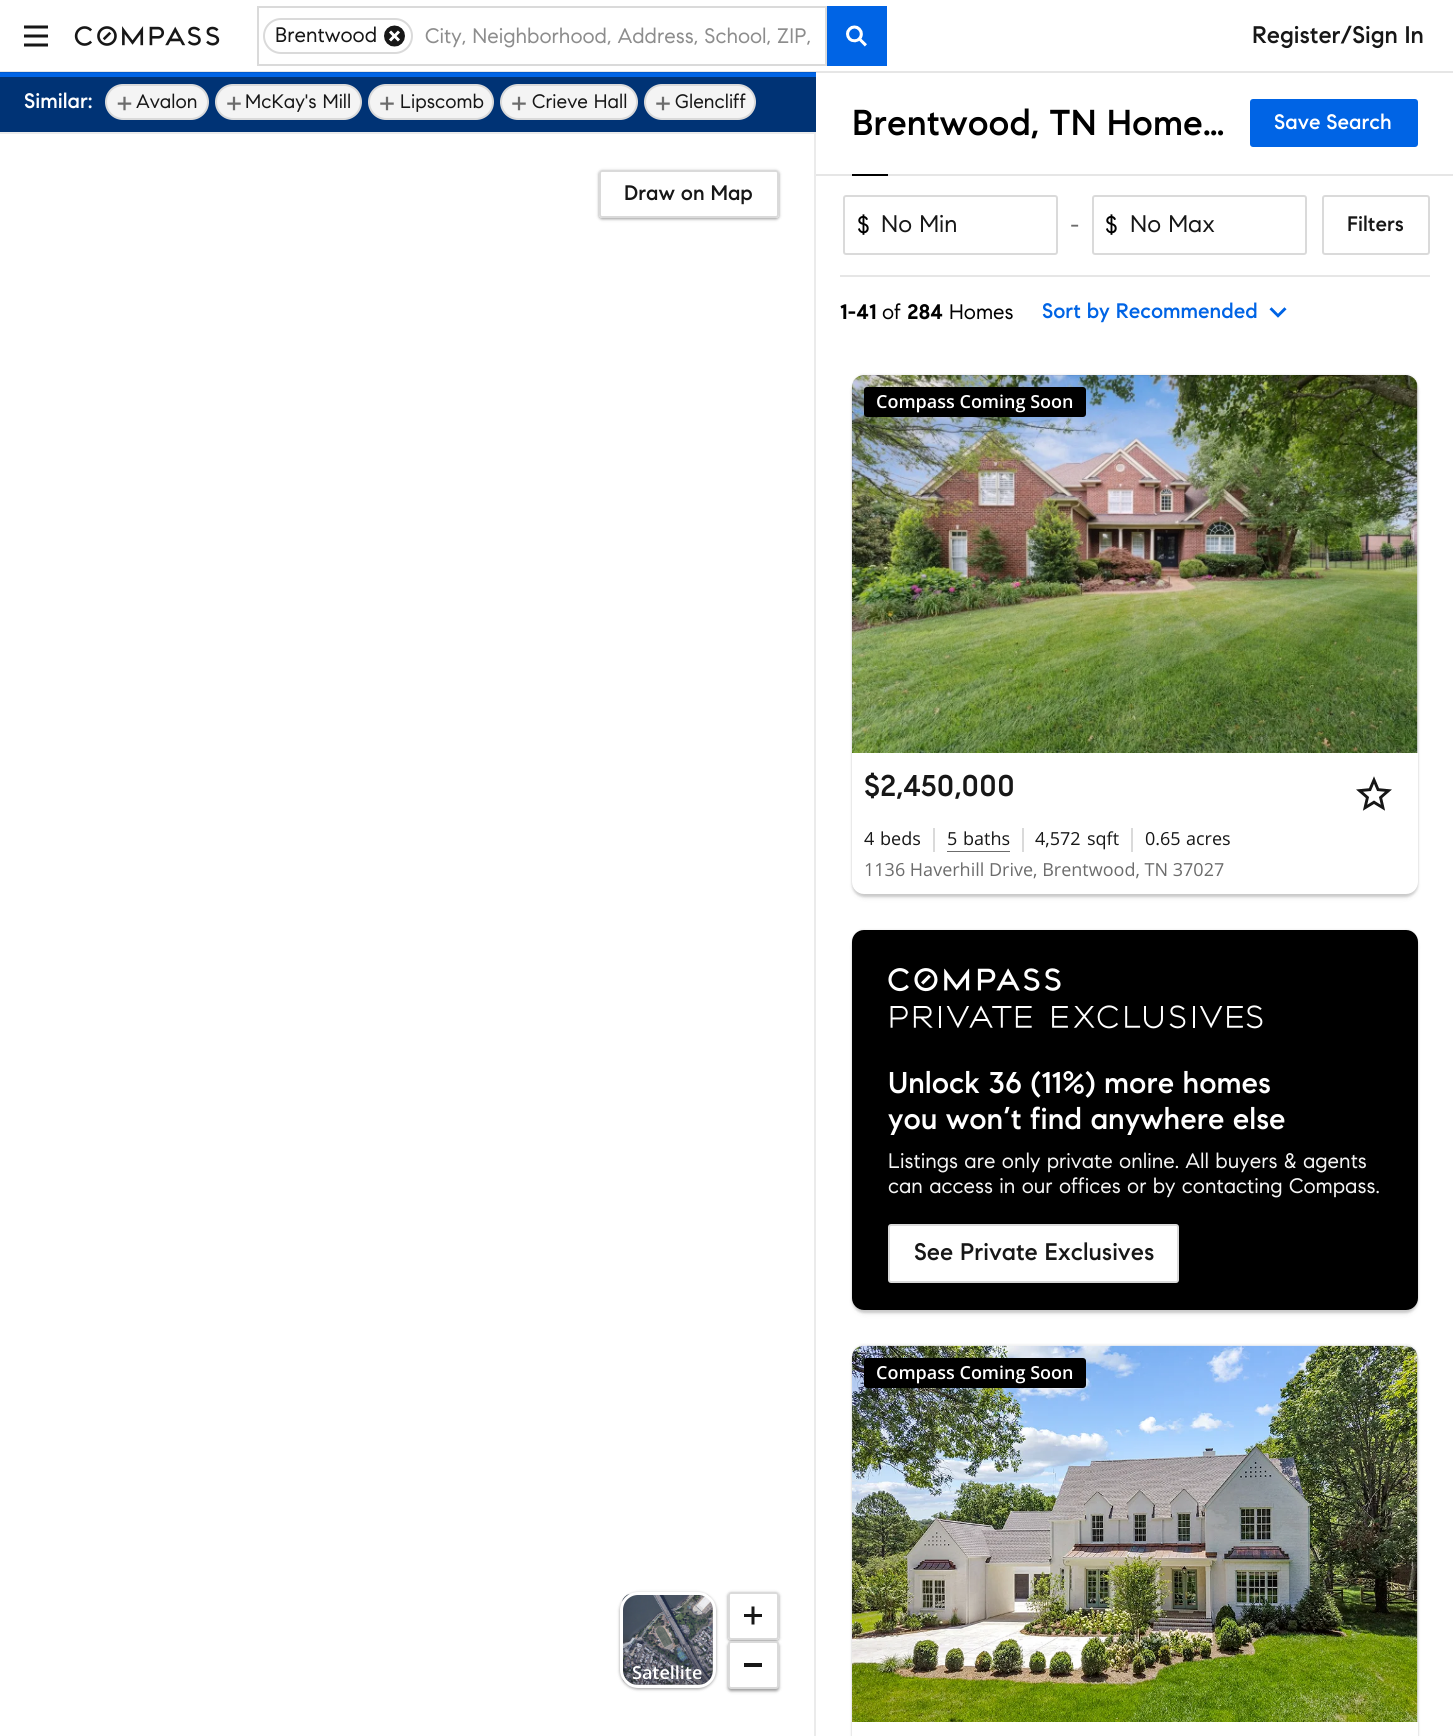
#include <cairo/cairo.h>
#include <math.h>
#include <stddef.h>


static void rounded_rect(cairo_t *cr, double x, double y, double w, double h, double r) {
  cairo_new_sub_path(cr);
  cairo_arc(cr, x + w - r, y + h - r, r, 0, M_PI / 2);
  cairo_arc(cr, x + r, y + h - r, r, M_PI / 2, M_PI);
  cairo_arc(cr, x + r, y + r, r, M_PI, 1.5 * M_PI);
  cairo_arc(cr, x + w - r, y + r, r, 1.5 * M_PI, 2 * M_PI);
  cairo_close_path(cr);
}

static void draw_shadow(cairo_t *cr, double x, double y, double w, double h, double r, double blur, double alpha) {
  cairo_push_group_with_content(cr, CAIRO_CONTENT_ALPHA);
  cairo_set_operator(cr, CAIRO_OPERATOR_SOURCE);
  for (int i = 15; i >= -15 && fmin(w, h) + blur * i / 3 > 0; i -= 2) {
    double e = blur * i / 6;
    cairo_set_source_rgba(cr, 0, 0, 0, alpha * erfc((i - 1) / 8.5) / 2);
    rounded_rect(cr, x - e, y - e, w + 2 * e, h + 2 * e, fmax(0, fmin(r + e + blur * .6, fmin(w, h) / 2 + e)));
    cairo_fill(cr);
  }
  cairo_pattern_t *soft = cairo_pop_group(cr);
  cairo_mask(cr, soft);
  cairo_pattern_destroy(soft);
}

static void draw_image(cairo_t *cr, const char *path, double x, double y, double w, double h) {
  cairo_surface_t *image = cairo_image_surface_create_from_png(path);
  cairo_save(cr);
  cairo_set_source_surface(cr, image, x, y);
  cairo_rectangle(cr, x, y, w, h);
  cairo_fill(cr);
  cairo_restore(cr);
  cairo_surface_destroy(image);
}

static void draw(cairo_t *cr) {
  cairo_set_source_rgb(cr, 1, 1, 1);
  cairo_paint(cr);
  cairo_set_source_rgb(cr, 230 / 255.0, 230 / 255.0, 230 / 255.0);
  cairo_rectangle(cr, 0, 71, 1453, 2);
  cairo_fill(cr);
  draw_image(cr, "images/1.png", 24, 25, 24, 22);
  draw_image(cr, "images/2.png", 74, 26, 146, 20);
  cairo_rectangle(cr, 258, 7, 568, 58);
  cairo_set_source_rgb(cr, 218 / 255.0, 218 / 255.0, 218 / 255.0);
  cairo_stroke(cr);
  rounded_rect(cr, 264, 19, 148, 34, 17);
  cairo_stroke(cr);
  draw_image(cr, "images/3.png", 384, 25, 21, 22);
  cairo_set_source_rgb(cr, 0, 100 / 255.0, 229 / 255.0);
  cairo_rectangle(cr, 827, 6, 60, 60);
  cairo_fill(cr);
  draw_image(cr, "images/4.png", 846, 25, 21, 22);
  cairo_rectangle(cr, 0, 73, 816, 4);
  cairo_fill(cr);
  cairo_set_source_rgb(cr, 0, 90 / 255.0, 206 / 255.0);
  cairo_rectangle(cr, 0, 72, 816, 1);
  cairo_fill(cr);
  cairo_set_source_rgb(cr, 0, 51 / 255.0, 117 / 255.0);
  cairo_rectangle(cr, 0, 77, 816, 55);
  cairo_fill(cr);
  cairo_set_source_rgb(cr, 244 / 255.0, 244 / 255.0, 244 / 255.0);
  rounded_rect(cr, 106, 85, 102, 34, 17);
  cairo_fill_preserve(cr);
  cairo_set_source_rgb(cr, 218 / 255.0, 218 / 255.0, 218 / 255.0);
  cairo_stroke(cr);
  draw_image(cr, "images/5.png", 117, 96, 15, 15);
  cairo_set_source_rgb(cr, 244 / 255.0, 244 / 255.0, 244 / 255.0);
  rounded_rect(cr, 216, 85, 145, 34, 17);
  cairo_fill_preserve(cr);
  cairo_set_source_rgb(cr, 218 / 255.0, 218 / 255.0, 218 / 255.0);
  cairo_stroke(cr);
  draw_image(cr, "images/6.png", 227, 96, 14, 15);
  cairo_set_source_rgb(cr, 244 / 255.0, 244 / 255.0, 244 / 255.0);
  rounded_rect(cr, 369, 85, 124, 34, 17);
  cairo_fill_preserve(cr);
  cairo_set_source_rgb(cr, 218 / 255.0, 218 / 255.0, 218 / 255.0);
  cairo_stroke(cr);
  draw_image(cr, "images/6.png", 380, 96, 14, 15);
  cairo_set_source_rgb(cr, 244 / 255.0, 244 / 255.0, 244 / 255.0);
  rounded_rect(cr, 501, 85, 136, 34, 17);
  cairo_fill_preserve(cr);
  cairo_set_source_rgb(cr, 218 / 255.0, 218 / 255.0, 218 / 255.0);
  cairo_stroke(cr);
  draw_image(cr, "images/6.png", 512, 96, 14, 15);
  cairo_set_source_rgb(cr, 244 / 255.0, 244 / 255.0, 244 / 255.0);
  rounded_rect(cr, 645, 85, 110, 34, 17);
  cairo_fill_preserve(cr);
  cairo_set_source_rgb(cr, 218 / 255.0, 218 / 255.0, 218 / 255.0);
  cairo_stroke(cr);
  draw_image(cr, "images/6.png", 656, 96, 14, 15);
  cairo_set_source_rgb(cr, 235 / 255.0, 235 / 255.0, 235 / 255.0);
  cairo_new_path(cr);
  cairo_move_to(cr, 0, 132);
  cairo_line_to(cr, 816, 132);
  cairo_line_to(cr, 814, 134);
  cairo_line_to(cr, 0, 134);
  cairo_close_path(cr);
  cairo_fill(cr);
  cairo_set_source_rgba(cr, 0, 0, 0, 0.08);
  cairo_new_path(cr);
  cairo_move_to(cr, 816, 132);
  cairo_line_to(cr, 816, 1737);
  cairo_line_to(cr, 814, 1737);
  cairo_line_to(cr, 814, 134);
  cairo_close_path(cr);
  cairo_fill(cr);
  cairo_save(cr);
  cairo_set_fill_rule(cr, CAIRO_FILL_RULE_EVEN_ODD);
  cairo_new_path(cr);
  cairo_move_to(cr, 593, 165);
  cairo_line_to(cr, 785, 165);
  cairo_line_to(cr, 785, 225);
  cairo_line_to(cr, 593, 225);
  cairo_close_path(cr);
  cairo_move_to(cr, 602, 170);
  cairo_line_to(cr, 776, 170);
  cairo_curve_to(cr, 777.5, 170, 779, 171.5, 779, 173);
  cairo_line_to(cr, 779, 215);
  cairo_curve_to(cr, 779, 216.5, 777.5, 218, 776, 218);
  cairo_line_to(cr, 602, 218);
  cairo_curve_to(cr, 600.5, 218, 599, 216.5, 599, 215);
  cairo_line_to(cr, 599, 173);
  cairo_curve_to(cr, 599, 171.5, 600.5, 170, 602, 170);
  cairo_close_path(cr);
  cairo_clip(cr);
  cairo_set_source_rgb(cr, 0, 0, 0);
  draw_shadow(cr, 599, 171, 180, 48, 3, 1.5, 0.4);
  cairo_restore(cr);
  rounded_rect(cr, 600, 171, 178, 46, 2);
  cairo_set_source_rgb(cr, 218 / 255.0, 218 / 255.0, 218 / 255.0);
  cairo_stroke(cr);
  cairo_set_source_rgb(cr, 0, 0, 0);
  draw_shadow(cr, 620, 1593, 96, 96, 18, 1.5, 0.4);
  draw_image(cr, "images/7.png", 622, 1594, 91, 91);
  rounded_rect(cr, 621.5, 1593.5, 93, 93, 16.5);
  cairo_set_source_rgb(cr, 1, 1, 1);
  cairo_set_line_width(cr, 3);
  cairo_stroke(cr);
  cairo_save(cr);
  cairo_set_fill_rule(cr, CAIRO_FILL_RULE_EVEN_ODD);
  cairo_new_path(cr);
  cairo_move_to(cr, 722, 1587);
  cairo_line_to(cr, 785, 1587);
  cairo_line_to(cr, 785, 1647);
  cairo_line_to(cr, 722, 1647);
  cairo_close_path(cr);
  cairo_move_to(cr, 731, 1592);
  cairo_line_to(cr, 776, 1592);
  cairo_curve_to(cr, 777.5, 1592, 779, 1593.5, 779, 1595);
  cairo_line_to(cr, 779, 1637);
  cairo_curve_to(cr, 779, 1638.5, 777.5, 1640, 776, 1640);
  cairo_line_to(cr, 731, 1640);
  cairo_curve_to(cr, 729.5, 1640, 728, 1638.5, 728, 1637);
  cairo_line_to(cr, 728, 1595);
  cairo_curve_to(cr, 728, 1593.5, 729.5, 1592, 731, 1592);
  cairo_close_path(cr);
  cairo_clip(cr);
  cairo_set_source_rgb(cr, 0, 0, 0);
  draw_shadow(cr, 728, 1593, 51, 48, 3, 1.5, 0.4);
  cairo_restore(cr);
  rounded_rect(cr, 729, 1593, 49, 46, 2);
  cairo_set_source_rgb(cr, 218 / 255.0, 218 / 255.0, 218 / 255.0);
  cairo_set_line_width(cr, 2);
  cairo_stroke(cr);
  draw_image(cr, "images/8.png", 744, 1606, 18, 19);
  cairo_set_source_rgb(cr, 0, 0, 0);
  draw_shadow(cr, 728, 1643, 51, 48, 3, 1.5, 0.4);
  cairo_set_source_rgb(cr, 1, 1, 1);
  rounded_rect(cr, 729, 1642, 49, 46, 2);
  cairo_fill_preserve(cr);
  cairo_set_source_rgb(cr, 218 / 255.0, 218 / 255.0, 218 / 255.0);
  cairo_stroke(cr);
  cairo_set_source_rgb(cr, 23 / 255.0, 23 / 255.0, 23 / 255.0);
  cairo_rectangle(cr, 744, 1663, 18, 4);
  cairo_fill(cr);
  cairo_set_source_rgb(cr, 230 / 255.0, 230 / 255.0, 230 / 255.0);
  cairo_rectangle(cr, 816, 174, 637, 2);
  cairo_fill(cr);
  cairo_set_source_rgb(cr, 0, 100 / 255.0, 229 / 255.0);
  rounded_rect(cr, 1251, 100, 166, 46, 2);
  cairo_fill_preserve(cr);
  cairo_stroke(cr);
  cairo_set_source_rgb(cr, 0, 0, 0);
  cairo_rectangle(cr, 852, 174, 36, 2);
  cairo_fill(cr);
  rounded_rect(cr, 844, 196, 213, 58, 2);
  cairo_set_source_rgb(cr, 218 / 255.0, 218 / 255.0, 218 / 255.0);
  cairo_stroke(cr);
  rounded_rect(cr, 1093, 196, 213, 58, 2);
  cairo_stroke(cr);
  rounded_rect(cr, 1323, 196, 106, 58, 2);
  cairo_stroke(cr);
  cairo_set_source_rgb(cr, 230 / 255.0, 230 / 255.0, 230 / 255.0);
  cairo_rectangle(cr, 840, 275, 590, 2);
  cairo_fill(cr);
  draw_image(cr, "images/9.png", 1269, 307, 18, 11);
  cairo_set_source_rgb(cr, 0, 0, 0);
  draw_shadow(cr, 852, 374, 566, 519, 12, 1, 0.06);
  draw_shadow(cr, 852, 378, 566, 519, 12, 1, 0.14);
  draw_shadow(cr, 854, 381, 562, 516, 11, 3, 0.1);
  cairo_set_source_rgb(cr, 1, 1, 1);
  rounded_rect(cr, 852, 375, 566, 519, 12);
  cairo_fill(cr);
  cairo_set_source_rgb(cr, 218 / 255.0, 218 / 255.0, 218 / 255.0);
  cairo_new_path(cr);
  cairo_move_to(cr, 864, 375);
  cairo_line_to(cr, 1406, 375);
  cairo_curve_to(cr, 1412.5, 375, 1418, 380.5, 1418, 387);
  cairo_line_to(cr, 1418, 753);
  cairo_line_to(cr, 852, 753);
  cairo_line_to(cr, 852, 387);
  cairo_curve_to(cr, 852, 380.5, 857.5, 375, 864, 375);
  cairo_close_path(cr);
  cairo_fill(cr);
  draw_image(cr, "images/10.png", 852, 375, 566, 378);
  cairo_set_source_rgb(cr, 0, 0, 0);
  rounded_rect(cr, 864, 387, 222, 30, 3);
  cairo_fill(cr);
  draw_image(cr, "images/11.png", 1356, 776, 36, 35);
  cairo_set_source_rgb(cr, 218 / 255.0, 218 / 255.0, 218 / 255.0);
  cairo_rectangle(cr, 933, 828, 2, 24);
  cairo_fill(cr);
  cairo_set_source_rgb(cr, 108 / 255.0, 108 / 255.0, 108 / 255.0);
  cairo_rectangle(cr, 947, 851, 63, 1);
  cairo_fill(cr);
  cairo_set_source_rgb(cr, 218 / 255.0, 218 / 255.0, 218 / 255.0);
  cairo_rectangle(cr, 1022, 828, 2, 24);
  cairo_fill(cr);
  cairo_rectangle(cr, 1131, 828, 2, 24);
  cairo_fill(cr);
  cairo_set_source_rgb(cr, 0, 0, 0);
  draw_shadow(cr, 852, 929, 566, 379, 12, 1, 0.06);
  draw_shadow(cr, 852, 933, 566, 380, 12, 1, 0.14);
  draw_shadow(cr, 854, 936, 562, 377, 11, 3, 0.1);
  cairo_set_source_rgb(cr, 0, 0, 0);
  rounded_rect(cr, 852, 930, 566, 380, 12);
  cairo_fill(cr);
  draw_image(cr, "images/12.png", 888, 968, 375, 61);
  cairo_set_source_rgb(cr, 1, 1, 1);
  rounded_rect(cr, 889, 1225, 289, 57, 2);
  cairo_fill_preserve(cr);
  cairo_set_source_rgb(cr, 218 / 255.0, 218 / 255.0, 218 / 255.0);
  cairo_stroke(cr);
  cairo_set_source_rgb(cr, 0, 0, 0);
  draw_shadow(cr, 852, 1344, 566, 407, 12, 1, 0.06);
  draw_shadow(cr, 852, 1349, 566, 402, 12, 1, 0.14);
  draw_shadow(cr, 854, 1352, 562, 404, 11, 3, 0.1);
  cairo_set_source_rgb(cr, 1, 1, 1);
  cairo_new_path(cr);
  cairo_move_to(cr, 864, 1346);
  cairo_line_to(cr, 1406, 1346);
  cairo_curve_to(cr, 1412.5, 1346, 1418, 1351.5, 1418, 1358);
  cairo_line_to(cr, 1418, 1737);
  cairo_line_to(cr, 852, 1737);
  cairo_line_to(cr, 852, 1358);
  cairo_curve_to(cr, 852, 1351.5, 857.5, 1346, 864, 1346);
  cairo_close_path(cr);
  cairo_fill(cr);
  cairo_set_source_rgb(cr, 218 / 255.0, 218 / 255.0, 218 / 255.0);
  cairo_new_path(cr);
  cairo_move_to(cr, 864, 1346);
  cairo_line_to(cr, 1406, 1346);
  cairo_curve_to(cr, 1412.5, 1346, 1418, 1351.5, 1418, 1358);
  cairo_line_to(cr, 1418, 1722);
  cairo_line_to(cr, 852, 1722);
  cairo_line_to(cr, 852, 1358);
  cairo_curve_to(cr, 852, 1351.5, 857.5, 1346, 864, 1346);
  cairo_close_path(cr);
  cairo_fill(cr);
  draw_image(cr, "images/13.png", 852, 1345, 566, 377);
  cairo_set_source_rgb(cr, 0, 0, 0);
  rounded_rect(cr, 864, 1358, 222, 30, 3);
  cairo_fill(cr);
  cairo_select_font_face(cr, "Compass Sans", CAIRO_FONT_SLANT_NORMAL, CAIRO_FONT_WEIGHT_NORMAL);
  cairo_set_font_size(cr, 21);
  cairo_set_source_rgb(cr, 23 / 255.0, 23 / 255.0, 23 / 255.0);
  cairo_move_to(cr, 275, 42);
  cairo_show_text(cr, "Brentwood");
  cairo_set_source_rgb(cr, 141 / 255.0, 141 / 255.0, 141 / 255.0);
  cairo_move_to(cr, 425, 43);
  cairo_show_text(cr, "City, Neighborhood, Address, School, ZIP,");
  cairo_select_font_face(cr, "Compass Sans Medium", CAIRO_FONT_SLANT_NORMAL, CAIRO_FONT_WEIGHT_NORMAL);
  cairo_set_font_size(cr, 24);
  cairo_set_source_rgb(cr, 23 / 255.0, 23 / 255.0, 23 / 255.0);
  cairo_move_to(cr, 1252, 43);
  cairo_show_text(cr, "Register/Sign In");
  cairo_set_font_size(cr, 21);
  cairo_set_source_rgb(cr, 1, 1, 1);
  cairo_move_to(cr, 24, 108);
  cairo_show_text(cr, "Similar:");
  cairo_select_font_face(cr, "Compass Sans", CAIRO_FONT_SLANT_NORMAL, CAIRO_FONT_WEIGHT_NORMAL);
  cairo_set_font_size(cr, 19.5);
  cairo_set_source_rgb(cr, 23 / 255.0, 23 / 255.0, 23 / 255.0);
  cairo_move_to(cr, 136, 108);
  cairo_show_text(cr, "Avalon");
  cairo_move_to(cr, 245, 108);
  cairo_show_text(cr, "McKay's Mill");
  cairo_move_to(cr, 400, 108);
  cairo_show_text(cr, "Lipscomb");
  cairo_move_to(cr, 532, 108);
  cairo_show_text(cr, "Crieve Hall");
  cairo_move_to(cr, 675, 108);
  cairo_show_text(cr, "Glencliff");
  cairo_select_font_face(cr, "Compass Sans Medium", CAIRO_FONT_SLANT_NORMAL, CAIRO_FONT_WEIGHT_NORMAL);
  cairo_set_font_size(cr, 21);
  cairo_move_to(cr, 624, 200);
  cairo_show_text(cr, "Draw on Map");
  cairo_select_font_face(cr, "Open Sans SemiBold", CAIRO_FONT_SLANT_NORMAL, CAIRO_FONT_WEIGHT_NORMAL);
  cairo_set_font_size(cr, 18);
  cairo_set_source_rgb(cr, 1, 1, 1);
  cairo_move_to(cr, 632, 1679);
  cairo_show_text(cr, "Satellite");
  cairo_select_font_face(cr, "Compass Sans Medium", CAIRO_FONT_SLANT_NORMAL, CAIRO_FONT_WEIGHT_NORMAL);
  cairo_set_font_size(cr, 36);
  cairo_set_source_rgb(cr, 0, 0, 0);
  cairo_move_to(cr, 852, 135);
  cairo_show_text(cr, "Brentwood, TN Home…");
  cairo_set_font_size(cr, 21);
  cairo_set_source_rgb(cr, 1, 1, 1);
  cairo_move_to(cr, 1274, 129);
  cairo_show_text(cr, "Save Search");
  cairo_select_font_face(cr, "Compass Sans", CAIRO_FONT_SLANT_NORMAL, CAIRO_FONT_WEIGHT_NORMAL);
  cairo_set_font_size(cr, 24);
  cairo_set_source_rgb(cr, 0, 0, 0);
  cairo_move_to(cr, 857, 233);
  cairo_show_text(cr, "$");
  cairo_set_source_rgb(cr, 23 / 255.0, 23 / 255.0, 23 / 255.0);
  cairo_move_to(cr, 881, 232);
  cairo_show_text(cr, "No Min");
  cairo_set_source_rgb(cr, 108 / 255.0, 108 / 255.0, 108 / 255.0);
  cairo_move_to(cr, 1070, 233);
  cairo_show_text(cr, "-");
  cairo_set_source_rgb(cr, 0, 0, 0);
  cairo_move_to(cr, 1105, 233);
  cairo_show_text(cr, "$");
  cairo_set_source_rgb(cr, 23 / 255.0, 23 / 255.0, 23 / 255.0);
  cairo_move_to(cr, 1130, 232);
  cairo_show_text(cr, "No Max");
  cairo_select_font_face(cr, "Compass Sans Medium", CAIRO_FONT_SLANT_NORMAL, CAIRO_FONT_WEIGHT_NORMAL);
  cairo_set_font_size(cr, 21);
  cairo_move_to(cr, 1347, 231);
  cairo_show_text(cr, "Filters");
  cairo_select_font_face(cr, "Compass Sans", CAIRO_FONT_SLANT_NORMAL, CAIRO_FONT_WEIGHT_BOLD);
  cairo_set_source_rgb(cr, 0, 0, 0);
  cairo_move_to(cr, 840, 319);
  cairo_show_text(cr, "1-41");
  cairo_select_font_face(cr, "Compass Sans", CAIRO_FONT_SLANT_NORMAL, CAIRO_FONT_WEIGHT_NORMAL);
  cairo_move_to(cr, 882, 319);
  cairo_show_text(cr, "of");
  cairo_select_font_face(cr, "Compass Sans", CAIRO_FONT_SLANT_NORMAL, CAIRO_FONT_WEIGHT_BOLD);
  cairo_move_to(cr, 907, 319);
  cairo_show_text(cr, "284");
  cairo_select_font_face(cr, "Compass Sans", CAIRO_FONT_SLANT_NORMAL, CAIRO_FONT_WEIGHT_NORMAL);
  cairo_move_to(cr, 949, 319);
  cairo_show_text(cr, "Homes");
  cairo_select_font_face(cr, "Compass Sans Medium", CAIRO_FONT_SLANT_NORMAL, CAIRO_FONT_WEIGHT_NORMAL);
  cairo_set_source_rgb(cr, 0, 100 / 255.0, 229 / 255.0);
  cairo_move_to(cr, 1042, 318);
  cairo_show_text(cr, "Sort by Recommended");
  cairo_select_font_face(cr, "Open Sans SemiBold", CAIRO_FONT_SLANT_NORMAL, CAIRO_FONT_WEIGHT_NORMAL);
  cairo_set_font_size(cr, 18);
  cairo_set_source_rgb(cr, 1, 1, 1);
  cairo_move_to(cr, 876, 408);
  cairo_show_text(cr, "Compass Coming Soon");
  cairo_select_font_face(cr, "Compass Sans Medium", CAIRO_FONT_SLANT_NORMAL, CAIRO_FONT_WEIGHT_NORMAL);
  cairo_set_font_size(cr, 30);
  cairo_set_source_rgb(cr, 23 / 255.0, 23 / 255.0, 23 / 255.0);
  cairo_move_to(cr, 864, 796);
  cairo_show_text(cr, "$2,450,000");
  cairo_select_font_face(cr, "Open Sans", CAIRO_FONT_SLANT_NORMAL, CAIRO_FONT_WEIGHT_NORMAL);
  cairo_set_font_size(cr, 18);
  cairo_move_to(cr, 864, 845);
  cairo_show_text(cr, "4");
  cairo_move_to(cr, 880, 845);
  cairo_show_text(cr, "beds");
  cairo_move_to(cr, 947, 845);
  cairo_show_text(cr, "5");
  cairo_move_to(cr, 963, 845);
  cairo_show_text(cr, "baths");
  cairo_move_to(cr, 1035, 845);
  cairo_show_text(cr, "4,572");
  cairo_move_to(cr, 1087, 845);
  cairo_show_text(cr, "sqft");
  cairo_move_to(cr, 1145, 845);
  cairo_show_text(cr, "0.65");
  cairo_move_to(cr, 1186, 845);
  cairo_show_text(cr, "acres");
  cairo_set_source_rgb(cr, 108 / 255.0, 108 / 255.0, 108 / 255.0);
  cairo_move_to(cr, 864, 876);
  cairo_show_text(cr, "1136 Haverhill Drive, Brentwood, TN 37027");
  cairo_select_font_face(cr, "Compass Sans Medium", CAIRO_FONT_SLANT_NORMAL, CAIRO_FONT_WEIGHT_NORMAL);
  cairo_set_font_size(cr, 30);
  cairo_set_source_rgb(cr, 1, 1, 1);
  cairo_move_to(cr, 888, 1093);
  cairo_show_text(cr, "Unlock 36 (11%) more homes");
  cairo_move_to(cr, 888, 1129);
  cairo_show_text(cr, "you won’t find anywhere else");
  cairo_select_font_face(cr, "Compass Sans", CAIRO_FONT_SLANT_NORMAL, CAIRO_FONT_WEIGHT_NORMAL);
  cairo_set_font_size(cr, 21);
  cairo_set_source_rgb(cr, 244 / 255.0, 244 / 255.0, 244 / 255.0);
  cairo_move_to(cr, 888, 1168);
  cairo_show_text(cr, "Listings are only private online. All buyers & agents");
  cairo_move_to(cr, 888, 1193);
  cairo_show_text(cr, "can access in our offices or by contacting Compass.");
  cairo_select_font_face(cr, "Compass Sans Medium", CAIRO_FONT_SLANT_NORMAL, CAIRO_FONT_WEIGHT_NORMAL);
  cairo_set_font_size(cr, 24);
  cairo_set_source_rgb(cr, 23 / 255.0, 23 / 255.0, 23 / 255.0);
  cairo_move_to(cr, 914, 1260);
  cairo_show_text(cr, "See Private Exclusives");
  cairo_select_font_face(cr, "Open Sans SemiBold", CAIRO_FONT_SLANT_NORMAL, CAIRO_FONT_WEIGHT_NORMAL);
  cairo_set_font_size(cr, 18);
  cairo_set_source_rgb(cr, 1, 1, 1);
  cairo_move_to(cr, 876, 1379);
  cairo_show_text(cr, "Compass Coming Soon");
}

int main(void) {
  cairo_surface_t *surface = cairo_image_surface_create(CAIRO_FORMAT_RGB24, 1453, 1736);
  cairo_t *cr = cairo_create(surface);
  cairo_font_options_t *options = cairo_font_options_create();
  cairo_font_options_set_hint_metrics(options, CAIRO_HINT_METRICS_OFF);
  cairo_font_options_set_hint_style(options, CAIRO_HINT_STYLE_NONE);
  cairo_set_font_options(cr, options);
  cairo_set_miter_limit(cr, 4);
  draw(cr);
  cairo_surface_write_to_png(surface, "out.png");
  cairo_font_options_destroy(options);
  cairo_destroy(cr);
  cairo_surface_destroy(surface);
  return 0;
}
